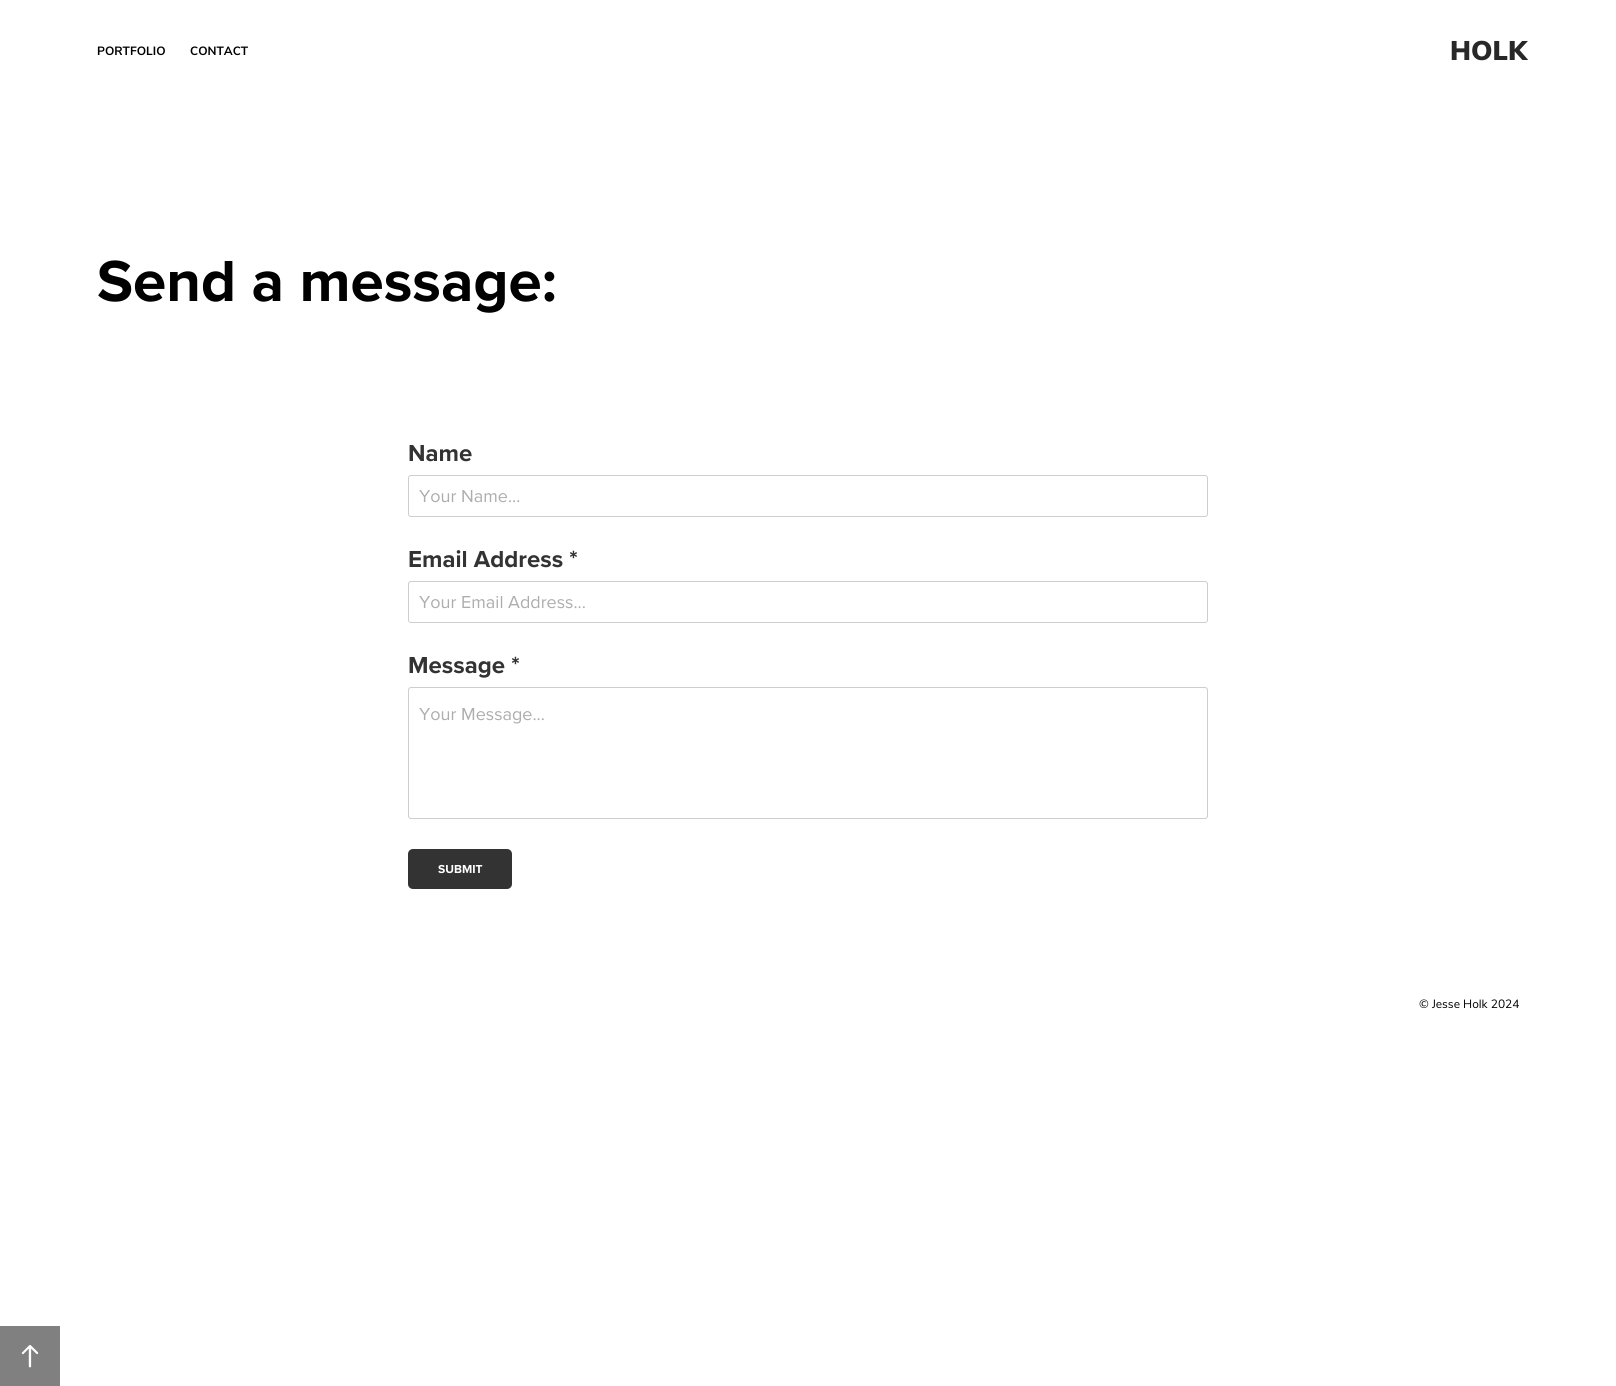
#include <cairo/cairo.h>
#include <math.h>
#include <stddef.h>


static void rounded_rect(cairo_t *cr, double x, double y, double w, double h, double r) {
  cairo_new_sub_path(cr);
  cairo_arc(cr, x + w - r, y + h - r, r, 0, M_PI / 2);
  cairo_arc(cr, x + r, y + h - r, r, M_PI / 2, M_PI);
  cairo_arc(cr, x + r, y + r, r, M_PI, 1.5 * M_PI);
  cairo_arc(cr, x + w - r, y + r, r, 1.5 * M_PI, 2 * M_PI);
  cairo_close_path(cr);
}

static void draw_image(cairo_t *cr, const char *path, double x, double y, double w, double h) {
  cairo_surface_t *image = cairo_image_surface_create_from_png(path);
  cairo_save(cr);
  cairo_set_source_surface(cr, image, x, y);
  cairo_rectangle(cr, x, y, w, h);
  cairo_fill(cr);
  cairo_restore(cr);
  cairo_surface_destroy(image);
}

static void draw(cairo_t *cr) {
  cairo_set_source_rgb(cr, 1, 1, 1);
  cairo_paint(cr);
  rounded_rect(cr, 408.5, 475.5, 799, 41, 2.5);
  cairo_set_source_rgb(cr, 206 / 255.0, 206 / 255.0, 206 / 255.0);
  cairo_set_line_width(cr, 1);
  cairo_stroke(cr);
  rounded_rect(cr, 408.5, 581.5, 799, 41, 2.5);
  cairo_stroke(cr);
  rounded_rect(cr, 408.5, 687.5, 799, 131, 2.5);
  cairo_stroke(cr);
  cairo_set_source_rgb(cr, 51 / 255.0, 51 / 255.0, 51 / 255.0);
  rounded_rect(cr, 408, 849, 104, 40, 5);
  cairo_fill(cr);
  cairo_set_source_rgb(cr, 128 / 255.0, 128 / 255.0, 128 / 255.0);
  cairo_rectangle(cr, 0, 1326, 60, 60);
  cairo_fill(cr);
  draw_image(cr, "images/1.png", 21, 1345, 18, 23);
  cairo_select_font_face(cr, "Nunito Sans", CAIRO_FONT_SLANT_NORMAL, CAIRO_FONT_WEIGHT_BOLD);
  cairo_set_font_size(cr, 12);
  cairo_set_source_rgb(cr, 0, 0, 0);
  cairo_move_to(cr, 97, 55);
  cairo_show_text(cr, "PORTFOLIO");
  cairo_move_to(cr, 190, 55);
  cairo_show_text(cr, "CONTACT");
  cairo_select_font_face(cr, "Nunito Sans Black", CAIRO_FONT_SLANT_NORMAL, CAIRO_FONT_WEIGHT_NORMAL);
  cairo_set_font_size(cr, 27);
  cairo_set_source_rgb(cr, 40 / 255.0, 40 / 255.0, 40 / 255.0);
  cairo_move_to(cr, 1450, 60);
  cairo_show_text(cr, "HOLK");
  cairo_select_font_face(cr, "Proxima Nova", CAIRO_FONT_SLANT_NORMAL, CAIRO_FONT_WEIGHT_BOLD);
  cairo_set_font_size(cr, 60);
  cairo_set_source_rgb(cr, 0, 0, 0);
  cairo_move_to(cr, 97, 301);
  cairo_show_text(cr, "Send a message:");
  cairo_set_font_size(cr, 24);
  cairo_set_source_rgb(cr, 51 / 255.0, 51 / 255.0, 51 / 255.0);
  cairo_move_to(cr, 408, 461);
  cairo_show_text(cr, "Name");
  cairo_select_font_face(cr, "Proxima Nova", CAIRO_FONT_SLANT_NORMAL, CAIRO_FONT_WEIGHT_NORMAL);
  cairo_set_font_size(cr, 18);
  cairo_set_source_rgb(cr, 173 / 255.0, 173 / 255.0, 173 / 255.0);
  cairo_move_to(cr, 419, 502);
  cairo_show_text(cr, "Your Name...");
  cairo_select_font_face(cr, "Proxima Nova", CAIRO_FONT_SLANT_NORMAL, CAIRO_FONT_WEIGHT_BOLD);
  cairo_set_font_size(cr, 24);
  cairo_set_source_rgb(cr, 51 / 255.0, 51 / 255.0, 51 / 255.0);
  cairo_move_to(cr, 408, 567);
  cairo_show_text(cr, "Email Address *");
  cairo_select_font_face(cr, "Proxima Nova", CAIRO_FONT_SLANT_NORMAL, CAIRO_FONT_WEIGHT_NORMAL);
  cairo_set_font_size(cr, 18);
  cairo_set_source_rgb(cr, 173 / 255.0, 173 / 255.0, 173 / 255.0);
  cairo_move_to(cr, 419, 608);
  cairo_show_text(cr, "Your Email Address...");
  cairo_select_font_face(cr, "Proxima Nova", CAIRO_FONT_SLANT_NORMAL, CAIRO_FONT_WEIGHT_BOLD);
  cairo_set_font_size(cr, 24);
  cairo_set_source_rgb(cr, 51 / 255.0, 51 / 255.0, 51 / 255.0);
  cairo_move_to(cr, 408, 673);
  cairo_show_text(cr, "Message *");
  cairo_select_font_face(cr, "Proxima Nova", CAIRO_FONT_SLANT_NORMAL, CAIRO_FONT_WEIGHT_NORMAL);
  cairo_set_font_size(cr, 18);
  cairo_set_source_rgb(cr, 173 / 255.0, 173 / 255.0, 173 / 255.0);
  cairo_move_to(cr, 419, 720);
  cairo_show_text(cr, "Your Message...");
  cairo_select_font_face(cr, "Proxima Nova", CAIRO_FONT_SLANT_NORMAL, CAIRO_FONT_WEIGHT_BOLD);
  cairo_set_font_size(cr, 12);
  cairo_set_source_rgb(cr, 1, 1, 1);
  cairo_move_to(cr, 438, 873);
  cairo_show_text(cr, "SUBMIT");
  cairo_select_font_face(cr, "Nunito Sans", CAIRO_FONT_SLANT_NORMAL, CAIRO_FONT_WEIGHT_NORMAL);
  cairo_set_source_rgb(cr, 0, 0, 0);
  cairo_move_to(cr, 1419, 1008);
  cairo_show_text(cr, "© Jesse Holk 2024");
}

int main(void) {
  cairo_surface_t *surface = cairo_image_surface_create(CAIRO_FORMAT_RGB24, 1616, 1386);
  cairo_t *cr = cairo_create(surface);
  cairo_font_options_t *options = cairo_font_options_create();
  cairo_font_options_set_hint_metrics(options, CAIRO_HINT_METRICS_OFF);
  cairo_font_options_set_hint_style(options, CAIRO_HINT_STYLE_NONE);
  cairo_set_font_options(cr, options);
  cairo_set_miter_limit(cr, 4);
  draw(cr);
  cairo_surface_write_to_png(surface, "out.png");
  cairo_font_options_destroy(options);
  cairo_destroy(cr);
  cairo_surface_destroy(surface);
  return 0;
}
